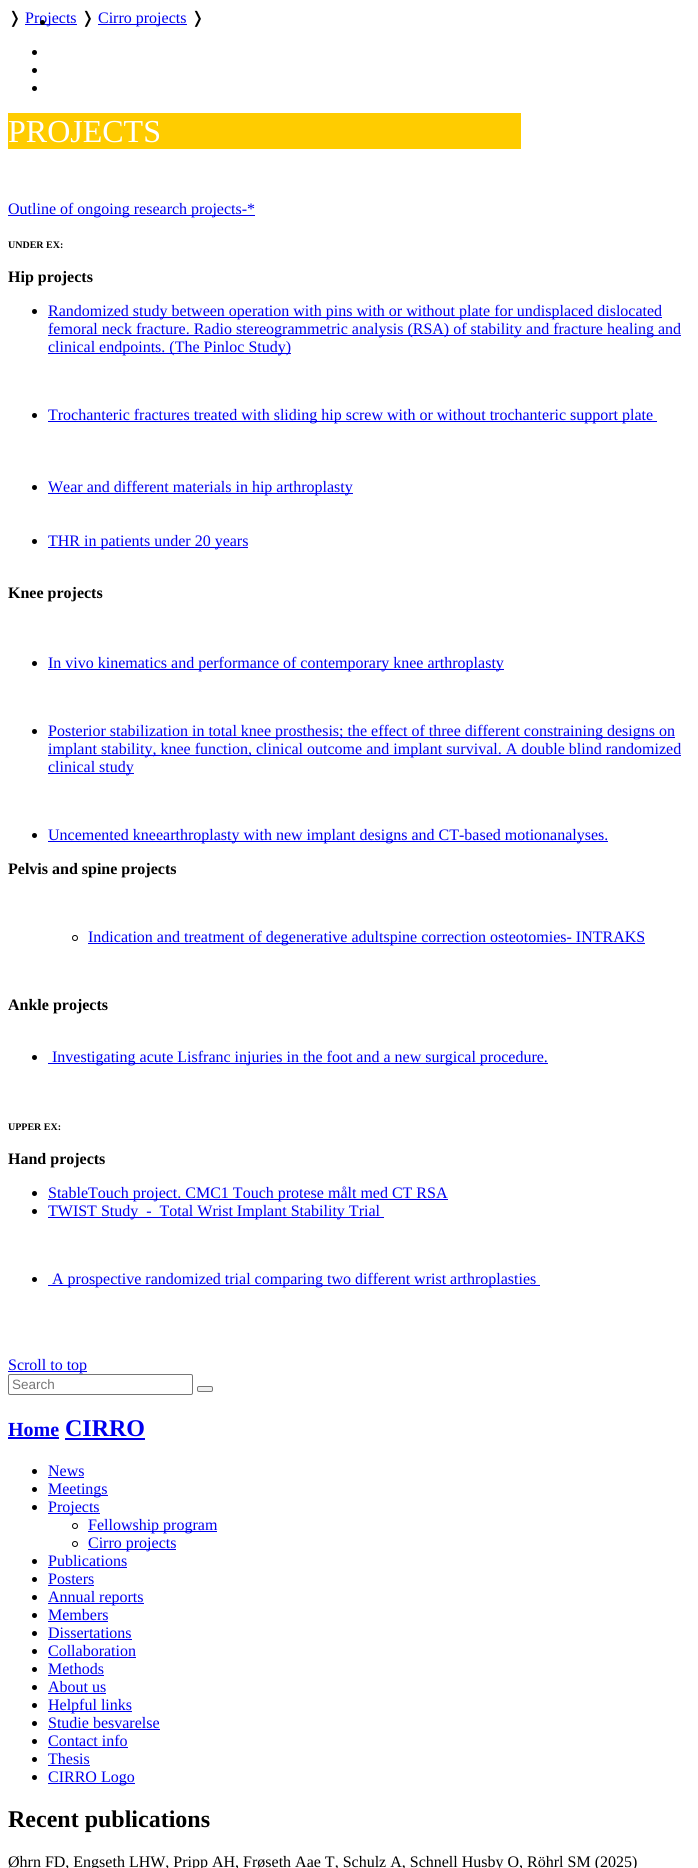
#include <cairo/cairo.h>
#include <math.h>
#include <stddef.h>


static void rounded_rect(cairo_t *cr, double x, double y, double w, double h, double r) {
  cairo_new_sub_path(cr);
  cairo_arc(cr, x + w - r, y + h - r, r, 0, M_PI / 2);
  cairo_arc(cr, x + r, y + h - r, r, M_PI / 2, M_PI);
  cairo_arc(cr, x + r, y + r, r, M_PI, 1.5 * M_PI);
  cairo_arc(cr, x + w - r, y + r, r, 1.5 * M_PI, 2 * M_PI);
  cairo_close_path(cr);
}

static void draw(cairo_t *cr) {
  cairo_set_source_rgb(cr, 1, 1, 1);
  cairo_paint(cr);
  cairo_set_source_rgb(cr, 0, 0, 238 / 255.0);
  cairo_rectangle(cr, 25, 24, 52, 1);
  cairo_fill(cr);
  cairo_rectangle(cr, 98, 24, 89, 1);
  cairo_fill(cr);
  cairo_set_source_rgb(cr, 0, 0, 0);
  cairo_arc(cr, 34.5, 52.5, 2.5, 0, 2 * M_PI);
  cairo_fill(cr);
  cairo_arc(cr, 34.5, 70.5, 2.5, 0, 2 * M_PI);
  cairo_fill(cr);
  cairo_arc(cr, 34.5, 88.5, 2.5, 0, 2 * M_PI);
  cairo_fill(cr);
  cairo_set_source_rgb(cr, 1, 204 / 255.0, 0);
  cairo_rectangle(cr, 8, 113, 513, 36);
  cairo_fill(cr);
  cairo_set_source_rgb(cr, 0, 0, 238 / 255.0);
  cairo_rectangle(cr, 8, 215, 247, 1);
  cairo_fill(cr);
  cairo_set_source_rgb(cr, 0, 0, 0);
  cairo_arc(cr, 34.5, 311.5, 2.5, 0, 2 * M_PI);
  cairo_fill(cr);
  cairo_set_source_rgb(cr, 0, 0, 238 / 255.0);
  cairo_rectangle(cr, 48, 317, 614, 1);
  cairo_fill(cr);
  cairo_rectangle(cr, 48, 335, 633, 1);
  cairo_fill(cr);
  cairo_rectangle(cr, 48, 353, 243, 1);
  cairo_fill(cr);
  cairo_set_source_rgb(cr, 0, 0, 0);
  cairo_arc(cr, 34.5, 415.5, 2.5, 0, 2 * M_PI);
  cairo_fill(cr);
  cairo_set_source_rgb(cr, 0, 0, 238 / 255.0);
  cairo_rectangle(cr, 48, 421, 609, 1);
  cairo_fill(cr);
  cairo_set_source_rgb(cr, 0, 0, 0);
  cairo_arc(cr, 34.5, 487.5, 2.5, 0, 2 * M_PI);
  cairo_fill(cr);
  cairo_set_source_rgb(cr, 0, 0, 238 / 255.0);
  cairo_rectangle(cr, 48, 493, 305, 1);
  cairo_fill(cr);
  cairo_set_source_rgb(cr, 0, 0, 0);
  cairo_arc(cr, 34.5, 541.5, 2.5, 0, 2 * M_PI);
  cairo_fill(cr);
  cairo_set_source_rgb(cr, 0, 0, 238 / 255.0);
  cairo_rectangle(cr, 48, 547, 200, 1);
  cairo_fill(cr);
  cairo_set_source_rgb(cr, 0, 0, 0);
  cairo_arc(cr, 34.5, 663.5, 2.5, 0, 2 * M_PI);
  cairo_fill(cr);
  cairo_set_source_rgb(cr, 0, 0, 238 / 255.0);
  cairo_rectangle(cr, 48, 669, 456, 1);
  cairo_fill(cr);
  cairo_set_source_rgb(cr, 0, 0, 0);
  cairo_arc(cr, 34.5, 731.5, 2.5, 0, 2 * M_PI);
  cairo_fill(cr);
  cairo_set_source_rgb(cr, 0, 0, 238 / 255.0);
  cairo_rectangle(cr, 48, 737, 627, 1);
  cairo_fill(cr);
  cairo_rectangle(cr, 48, 755, 633, 1);
  cairo_fill(cr);
  cairo_rectangle(cr, 48, 773, 86, 1);
  cairo_fill(cr);
  cairo_set_source_rgb(cr, 0, 0, 0);
  cairo_arc(cr, 34.5, 835.5, 2.5, 0, 2 * M_PI);
  cairo_fill(cr);
  cairo_set_source_rgb(cr, 0, 0, 238 / 255.0);
  cairo_rectangle(cr, 48, 841, 560, 1);
  cairo_fill(cr);
  cairo_arc(cr, 75, 938, 2.5, 0, 2 * M_PI);
  cairo_set_source_rgb(cr, 0, 0, 0);
  cairo_set_line_width(cr, 1);
  cairo_stroke(cr);
  cairo_set_source_rgb(cr, 0, 0, 238 / 255.0);
  cairo_rectangle(cr, 88, 943, 557, 1);
  cairo_fill(cr);
  cairo_set_source_rgb(cr, 0, 0, 0);
  cairo_arc(cr, 34.5, 1057.5, 2.5, 0, 2 * M_PI);
  cairo_fill(cr);
  cairo_set_source_rgb(cr, 0, 0, 238 / 255.0);
  cairo_rectangle(cr, 48, 1063, 500, 1);
  cairo_fill(cr);
  cairo_set_source_rgb(cr, 0, 0, 0);
  cairo_arc(cr, 34.5, 1193.5, 2.5, 0, 2 * M_PI);
  cairo_fill(cr);
  cairo_set_source_rgb(cr, 0, 0, 238 / 255.0);
  cairo_rectangle(cr, 48, 1199, 400, 1);
  cairo_fill(cr);
  cairo_set_source_rgb(cr, 0, 0, 0);
  cairo_arc(cr, 34.5, 1211.5, 2.5, 0, 2 * M_PI);
  cairo_fill(cr);
  cairo_set_source_rgb(cr, 0, 0, 238 / 255.0);
  cairo_rectangle(cr, 48, 1217, 336, 1);
  cairo_fill(cr);
  cairo_set_source_rgb(cr, 0, 0, 0);
  cairo_arc(cr, 34.5, 1279.5, 2.5, 0, 2 * M_PI);
  cairo_fill(cr);
  cairo_set_source_rgb(cr, 0, 0, 238 / 255.0);
  cairo_rectangle(cr, 48, 1285, 492, 1);
  cairo_fill(cr);
  cairo_rectangle(cr, 8, 1371, 79, 1);
  cairo_fill(cr);
  rounded_rect(cr, 8.5, 1374.5, 184, 20, 1.5);
  cairo_set_source_rgb(cr, 118 / 255.0, 118 / 255.0, 118 / 255.0);
  cairo_stroke(cr);
  cairo_set_source_rgb(cr, 239 / 255.0, 239 / 255.0, 239 / 255.0);
  rounded_rect(cr, 197.5, 1386.5, 15, 5, 1.5);
  cairo_fill_preserve(cr);
  cairo_set_source_rgb(cr, 118 / 255.0, 118 / 255.0, 118 / 255.0);
  cairo_stroke(cr);
  cairo_set_source_rgb(cr, 0, 0, 238 / 255.0);
  cairo_rectangle(cr, 8, 1437, 51, 2);
  cairo_fill(cr);
  cairo_rectangle(cr, 65, 1438, 80, 2);
  cairo_fill(cr);
  cairo_set_source_rgb(cr, 0, 0, 0);
  cairo_arc(cr, 34.5, 1471.5, 2.5, 0, 2 * M_PI);
  cairo_fill(cr);
  cairo_set_source_rgb(cr, 0, 0, 238 / 255.0);
  cairo_rectangle(cr, 48, 1477, 36, 1);
  cairo_fill(cr);
  cairo_set_source_rgb(cr, 0, 0, 0);
  cairo_arc(cr, 34.5, 1489.5, 2.5, 0, 2 * M_PI);
  cairo_fill(cr);
  cairo_set_source_rgb(cr, 0, 0, 238 / 255.0);
  cairo_rectangle(cr, 48, 1495, 60, 1);
  cairo_fill(cr);
  cairo_set_source_rgb(cr, 0, 0, 0);
  cairo_arc(cr, 34.5, 1507.5, 2.5, 0, 2 * M_PI);
  cairo_fill(cr);
  cairo_set_source_rgb(cr, 0, 0, 238 / 255.0);
  cairo_rectangle(cr, 48, 1513, 52, 1);
  cairo_fill(cr);
  cairo_arc(cr, 75, 1526, 2.5, 0, 2 * M_PI);
  cairo_set_source_rgb(cr, 0, 0, 0);
  cairo_stroke(cr);
  cairo_set_source_rgb(cr, 0, 0, 238 / 255.0);
  cairo_rectangle(cr, 88, 1531, 129, 1);
  cairo_fill(cr);
  cairo_arc(cr, 75, 1544, 2.5, 0, 2 * M_PI);
  cairo_set_source_rgb(cr, 0, 0, 0);
  cairo_stroke(cr);
  cairo_set_source_rgb(cr, 0, 0, 238 / 255.0);
  cairo_rectangle(cr, 88, 1549, 88, 1);
  cairo_fill(cr);
  cairo_set_source_rgb(cr, 0, 0, 0);
  cairo_arc(cr, 34.5, 1561.5, 2.5, 0, 2 * M_PI);
  cairo_fill(cr);
  cairo_set_source_rgb(cr, 0, 0, 238 / 255.0);
  cairo_rectangle(cr, 48, 1567, 79, 1);
  cairo_fill(cr);
  cairo_set_source_rgb(cr, 0, 0, 0);
  cairo_arc(cr, 34.5, 1579.5, 2.5, 0, 2 * M_PI);
  cairo_fill(cr);
  cairo_set_source_rgb(cr, 0, 0, 238 / 255.0);
  cairo_rectangle(cr, 48, 1585, 46, 1);
  cairo_fill(cr);
  cairo_set_source_rgb(cr, 0, 0, 0);
  cairo_arc(cr, 34.5, 1597.5, 2.5, 0, 2 * M_PI);
  cairo_fill(cr);
  cairo_set_source_rgb(cr, 0, 0, 238 / 255.0);
  cairo_rectangle(cr, 48, 1603, 96, 1);
  cairo_fill(cr);
  cairo_set_source_rgb(cr, 0, 0, 0);
  cairo_arc(cr, 34.5, 1615.5, 2.5, 0, 2 * M_PI);
  cairo_fill(cr);
  cairo_set_source_rgb(cr, 0, 0, 238 / 255.0);
  cairo_rectangle(cr, 48, 1621, 60, 1);
  cairo_fill(cr);
  cairo_set_source_rgb(cr, 0, 0, 0);
  cairo_arc(cr, 34.5, 1633.5, 2.5, 0, 2 * M_PI);
  cairo_fill(cr);
  cairo_set_source_rgb(cr, 0, 0, 238 / 255.0);
  cairo_rectangle(cr, 48, 1639, 84, 1);
  cairo_fill(cr);
  cairo_set_source_rgb(cr, 0, 0, 0);
  cairo_arc(cr, 34.5, 1651.5, 2.5, 0, 2 * M_PI);
  cairo_fill(cr);
  cairo_set_source_rgb(cr, 0, 0, 238 / 255.0);
  cairo_rectangle(cr, 48, 1657, 88, 1);
  cairo_fill(cr);
  cairo_set_source_rgb(cr, 0, 0, 0);
  cairo_arc(cr, 34.5, 1669.5, 2.5, 0, 2 * M_PI);
  cairo_fill(cr);
  cairo_set_source_rgb(cr, 0, 0, 238 / 255.0);
  cairo_rectangle(cr, 48, 1675, 56, 1);
  cairo_fill(cr);
  cairo_set_source_rgb(cr, 0, 0, 0);
  cairo_arc(cr, 34.5, 1687.5, 2.5, 0, 2 * M_PI);
  cairo_fill(cr);
  cairo_set_source_rgb(cr, 0, 0, 238 / 255.0);
  cairo_rectangle(cr, 48, 1693, 58, 1);
  cairo_fill(cr);
  cairo_set_source_rgb(cr, 0, 0, 0);
  cairo_arc(cr, 34.5, 1705.5, 2.5, 0, 2 * M_PI);
  cairo_fill(cr);
  cairo_set_source_rgb(cr, 0, 0, 238 / 255.0);
  cairo_rectangle(cr, 48, 1711, 84, 1);
  cairo_fill(cr);
  cairo_set_source_rgb(cr, 0, 0, 0);
  cairo_arc(cr, 34.5, 1723.5, 2.5, 0, 2 * M_PI);
  cairo_fill(cr);
  cairo_set_source_rgb(cr, 0, 0, 238 / 255.0);
  cairo_rectangle(cr, 48, 1729, 112, 1);
  cairo_fill(cr);
  cairo_set_source_rgb(cr, 0, 0, 0);
  cairo_arc(cr, 34.5, 1741.5, 2.5, 0, 2 * M_PI);
  cairo_fill(cr);
  cairo_set_source_rgb(cr, 0, 0, 238 / 255.0);
  cairo_rectangle(cr, 48, 1747, 80, 1);
  cairo_fill(cr);
  cairo_set_source_rgb(cr, 0, 0, 0);
  cairo_arc(cr, 34.5, 1759.5, 2.5, 0, 2 * M_PI);
  cairo_fill(cr);
  cairo_set_source_rgb(cr, 0, 0, 238 / 255.0);
  cairo_rectangle(cr, 48, 1765, 42, 1);
  cairo_fill(cr);
  cairo_set_source_rgb(cr, 0, 0, 0);
  cairo_arc(cr, 34.5, 1777.5, 2.5, 0, 2 * M_PI);
  cairo_fill(cr);
  cairo_set_source_rgb(cr, 0, 0, 238 / 255.0);
  cairo_rectangle(cr, 48, 1783, 87, 1);
  cairo_fill(cr);
  cairo_select_font_face(cr, "DejaVu Sans", CAIRO_FONT_SLANT_NORMAL, CAIRO_FONT_WEIGHT_NORMAL);
  cairo_set_font_size(cr, 16);
  cairo_set_source_rgb(cr, 0, 0, 0);
  cairo_move_to(cr, 8, 23);
  cairo_show_text(cr, "❭");
  cairo_select_font_face(cr, "Liberation Serif", CAIRO_FONT_SLANT_NORMAL, CAIRO_FONT_WEIGHT_NORMAL);
  cairo_set_source_rgb(cr, 0, 0, 238 / 255.0);
  cairo_move_to(cr, 25, 23);
  cairo_show_text(cr, "Projects");
  cairo_select_font_face(cr, "DejaVu Sans", CAIRO_FONT_SLANT_NORMAL, CAIRO_FONT_WEIGHT_NORMAL);
  cairo_set_source_rgb(cr, 0, 0, 0);
  cairo_move_to(cr, 81, 23);
  cairo_show_text(cr, "❭");
  cairo_select_font_face(cr, "Liberation Serif", CAIRO_FONT_SLANT_NORMAL, CAIRO_FONT_WEIGHT_NORMAL);
  cairo_set_source_rgb(cr, 0, 0, 238 / 255.0);
  cairo_move_to(cr, 98, 23);
  cairo_show_text(cr, "Cirro projects");
  cairo_select_font_face(cr, "DejaVu Sans", CAIRO_FONT_SLANT_NORMAL, CAIRO_FONT_WEIGHT_NORMAL);
  cairo_set_source_rgb(cr, 0, 0, 0);
  cairo_move_to(cr, 191, 23);
  cairo_show_text(cr, "❭");
  cairo_select_font_face(cr, "Liberation Serif", CAIRO_FONT_SLANT_NORMAL, CAIRO_FONT_WEIGHT_NORMAL);
  cairo_set_font_size(cr, 32);
  cairo_set_source_rgb(cr, 1, 1, 1);
  cairo_move_to(cr, 8, 142);
  cairo_show_text(cr, "PROJECTS");
  cairo_set_font_size(cr, 16);
  cairo_set_source_rgb(cr, 0, 0, 238 / 255.0);
  cairo_move_to(cr, 8, 214);
  cairo_show_text(cr, "Outline of ongoing research projects-*");
  cairo_select_font_face(cr, "Liberation Serif", CAIRO_FONT_SLANT_NORMAL, CAIRO_FONT_WEIGHT_BOLD);
  cairo_set_font_size(cr, 10);
  cairo_set_source_rgb(cr, 0, 0, 0);
  cairo_move_to(cr, 8, 248);
  cairo_show_text(cr, "UNDER EX:");
  cairo_set_font_size(cr, 16);
  cairo_move_to(cr, 8, 282);
  cairo_show_text(cr, "Hip projects");
  cairo_select_font_face(cr, "Liberation Serif", CAIRO_FONT_SLANT_NORMAL, CAIRO_FONT_WEIGHT_NORMAL);
  cairo_set_source_rgb(cr, 0, 0, 238 / 255.0);
  cairo_move_to(cr, 48, 316);
  cairo_show_text(cr, "Randomized study between operation with pins with or without plate for undisplaced dislocated");
  cairo_move_to(cr, 48, 334);
  cairo_show_text(cr, "femoral neck fracture. Radio stereogrammetric analysis (RSA) of stability and fracture healing and");
  cairo_move_to(cr, 48, 352);
  cairo_show_text(cr, "clinical endpoints. (The Pinloc Study)");
  cairo_move_to(cr, 48, 420);
  cairo_show_text(cr, "Trochanteric fractures treated with sliding hip screw with or without trochanteric support plate");
  cairo_move_to(cr, 48, 492);
  cairo_show_text(cr, "Wear and different materials in hip arthroplasty");
  cairo_move_to(cr, 48, 546);
  cairo_show_text(cr, "THR in patients under 20 years");
  cairo_select_font_face(cr, "Liberation Serif", CAIRO_FONT_SLANT_NORMAL, CAIRO_FONT_WEIGHT_BOLD);
  cairo_set_source_rgb(cr, 0, 0, 0);
  cairo_move_to(cr, 8, 598);
  cairo_show_text(cr, "Knee projects");
  cairo_select_font_face(cr, "Liberation Serif", CAIRO_FONT_SLANT_NORMAL, CAIRO_FONT_WEIGHT_NORMAL);
  cairo_set_source_rgb(cr, 0, 0, 238 / 255.0);
  cairo_move_to(cr, 48, 668);
  cairo_show_text(cr, "In vivo kinematics and performance of contemporary knee arthroplasty");
  cairo_move_to(cr, 48, 736);
  cairo_show_text(cr, "Posterior stabilization in total knee prosthesis; the effect of three different constraining designs on");
  cairo_move_to(cr, 48, 754);
  cairo_show_text(cr, "implant stability, knee function, clinical outcome and implant survival. A double blind randomized");
  cairo_move_to(cr, 48, 772);
  cairo_show_text(cr, "clinical study");
  cairo_move_to(cr, 48, 840);
  cairo_show_text(cr, "Uncemented kneearthroplasty with new implant designs and CT-based motionanalyses.");
  cairo_select_font_face(cr, "Liberation Serif", CAIRO_FONT_SLANT_NORMAL, CAIRO_FONT_WEIGHT_BOLD);
  cairo_set_source_rgb(cr, 0, 0, 0);
  cairo_move_to(cr, 8, 874);
  cairo_show_text(cr, "Pelvis and spine projects");
  cairo_select_font_face(cr, "Liberation Serif", CAIRO_FONT_SLANT_NORMAL, CAIRO_FONT_WEIGHT_NORMAL);
  cairo_set_source_rgb(cr, 0, 0, 238 / 255.0);
  cairo_move_to(cr, 88, 942);
  cairo_show_text(cr, "Indication and treatment of degenerative adultspine correction osteotomies- INTRAKS");
  cairo_select_font_face(cr, "Liberation Serif", CAIRO_FONT_SLANT_NORMAL, CAIRO_FONT_WEIGHT_BOLD);
  cairo_set_source_rgb(cr, 0, 0, 0);
  cairo_move_to(cr, 8, 1010);
  cairo_show_text(cr, "Ankle projects");
  cairo_select_font_face(cr, "Liberation Serif", CAIRO_FONT_SLANT_NORMAL, CAIRO_FONT_WEIGHT_NORMAL);
  cairo_set_source_rgb(cr, 0, 0, 238 / 255.0);
  cairo_move_to(cr, 52, 1062);
  cairo_show_text(cr, "Investigating acute Lisfranc injuries in the foot and a new surgical procedure.");
  cairo_select_font_face(cr, "Liberation Serif", CAIRO_FONT_SLANT_NORMAL, CAIRO_FONT_WEIGHT_BOLD);
  cairo_set_font_size(cr, 10);
  cairo_set_source_rgb(cr, 0, 0, 0);
  cairo_move_to(cr, 8, 1130);
  cairo_show_text(cr, "UPPER EX:");
  cairo_set_font_size(cr, 16);
  cairo_move_to(cr, 8, 1164);
  cairo_show_text(cr, "Hand projects");
  cairo_select_font_face(cr, "Liberation Serif", CAIRO_FONT_SLANT_NORMAL, CAIRO_FONT_WEIGHT_NORMAL);
  cairo_set_source_rgb(cr, 0, 0, 238 / 255.0);
  cairo_move_to(cr, 48, 1198);
  cairo_show_text(cr, "StableTouch project. CMC1 Touch protese målt med CT RSA");
  cairo_move_to(cr, 48, 1216);
  cairo_show_text(cr, "TWIST Study  -  Total Wrist Implant Stability Trial");
  cairo_move_to(cr, 52, 1284);
  cairo_show_text(cr, "A prospective randomized trial comparing two different wrist arthroplasties");
  cairo_move_to(cr, 8, 1370);
  cairo_show_text(cr, "Scroll to top");
  cairo_set_source_rgb(cr, 0, 0, 0);
  cairo_new_path(cr);
  cairo_arc(cr, 42.5, 22.5, 2.5, 0, 2 * M_PI);
  cairo_fill(cr);
  cairo_select_font_face(cr, "Liberation Sans", CAIRO_FONT_SLANT_NORMAL, CAIRO_FONT_WEIGHT_NORMAL);
  cairo_set_font_size(cr, 13.5);
  cairo_set_source_rgb(cr, 117 / 255.0, 117 / 255.0, 117 / 255.0);
  cairo_move_to(cr, 12, 1389);
  cairo_show_text(cr, "Search");
  cairo_select_font_face(cr, "Liberation Serif", CAIRO_FONT_SLANT_NORMAL, CAIRO_FONT_WEIGHT_BOLD);
  cairo_set_font_size(cr, 20);
  cairo_set_source_rgb(cr, 0, 0, 238 / 255.0);
  cairo_move_to(cr, 8, 1436);
  cairo_show_text(cr, "Home");
  cairo_set_font_size(cr, 24);
  cairo_move_to(cr, 65, 1436);
  cairo_show_text(cr, "CIRRO");
  cairo_select_font_face(cr, "Liberation Serif", CAIRO_FONT_SLANT_NORMAL, CAIRO_FONT_WEIGHT_NORMAL);
  cairo_set_font_size(cr, 16);
  cairo_move_to(cr, 48, 1476);
  cairo_show_text(cr, "News");
  cairo_move_to(cr, 48, 1494);
  cairo_show_text(cr, "Meetings");
  cairo_move_to(cr, 48, 1512);
  cairo_show_text(cr, "Projects");
  cairo_move_to(cr, 88, 1530);
  cairo_show_text(cr, "Fellowship program");
  cairo_move_to(cr, 88, 1548);
  cairo_show_text(cr, "Cirro projects");
  cairo_move_to(cr, 48, 1566);
  cairo_show_text(cr, "Publications");
  cairo_move_to(cr, 48, 1584);
  cairo_show_text(cr, "Posters");
  cairo_move_to(cr, 48, 1602);
  cairo_show_text(cr, "Annual reports");
  cairo_move_to(cr, 48, 1620);
  cairo_show_text(cr, "Members");
  cairo_move_to(cr, 48, 1638);
  cairo_show_text(cr, "Dissertations");
  cairo_move_to(cr, 48, 1656);
  cairo_show_text(cr, "Collaboration");
  cairo_move_to(cr, 48, 1674);
  cairo_show_text(cr, "Methods");
  cairo_move_to(cr, 48, 1692);
  cairo_show_text(cr, "About us");
  cairo_move_to(cr, 48, 1710);
  cairo_show_text(cr, "Helpful links");
  cairo_move_to(cr, 48, 1728);
  cairo_show_text(cr, "Studie besvarelse");
  cairo_move_to(cr, 48, 1746);
  cairo_show_text(cr, "Contact info");
  cairo_move_to(cr, 48, 1764);
  cairo_show_text(cr, "Thesis");
  cairo_move_to(cr, 48, 1782);
  cairo_show_text(cr, "CIRRO Logo");
  cairo_select_font_face(cr, "Liberation Serif", CAIRO_FONT_SLANT_NORMAL, CAIRO_FONT_WEIGHT_BOLD);
  cairo_set_font_size(cr, 24);
  cairo_set_source_rgb(cr, 0, 0, 0);
  cairo_move_to(cr, 8, 1827);
  cairo_show_text(cr, "Recent publications");
  cairo_select_font_face(cr, "Liberation Serif", CAIRO_FONT_SLANT_NORMAL, CAIRO_FONT_WEIGHT_NORMAL);
  cairo_set_font_size(cr, 16);
  cairo_move_to(cr, 8, 1867);
  cairo_show_text(cr, "Øhrn FD, Engseth LHW, Pripp AH, Frøseth Aae T, Schulz A, Schnell Husby O, Röhrl SM (2025)");
}

int main(void) {
  cairo_surface_t *surface = cairo_image_surface_create(CAIRO_FORMAT_RGB24, 698, 1868);
  cairo_t *cr = cairo_create(surface);
  cairo_font_options_t *options = cairo_font_options_create();
  cairo_font_options_set_hint_metrics(options, CAIRO_HINT_METRICS_OFF);
  cairo_font_options_set_hint_style(options, CAIRO_HINT_STYLE_NONE);
  cairo_set_font_options(cr, options);
  cairo_set_miter_limit(cr, 4);
  draw(cr);
  cairo_surface_write_to_png(surface, "out.png");
  cairo_font_options_destroy(options);
  cairo_destroy(cr);
  cairo_surface_destroy(surface);
  return 0;
}
